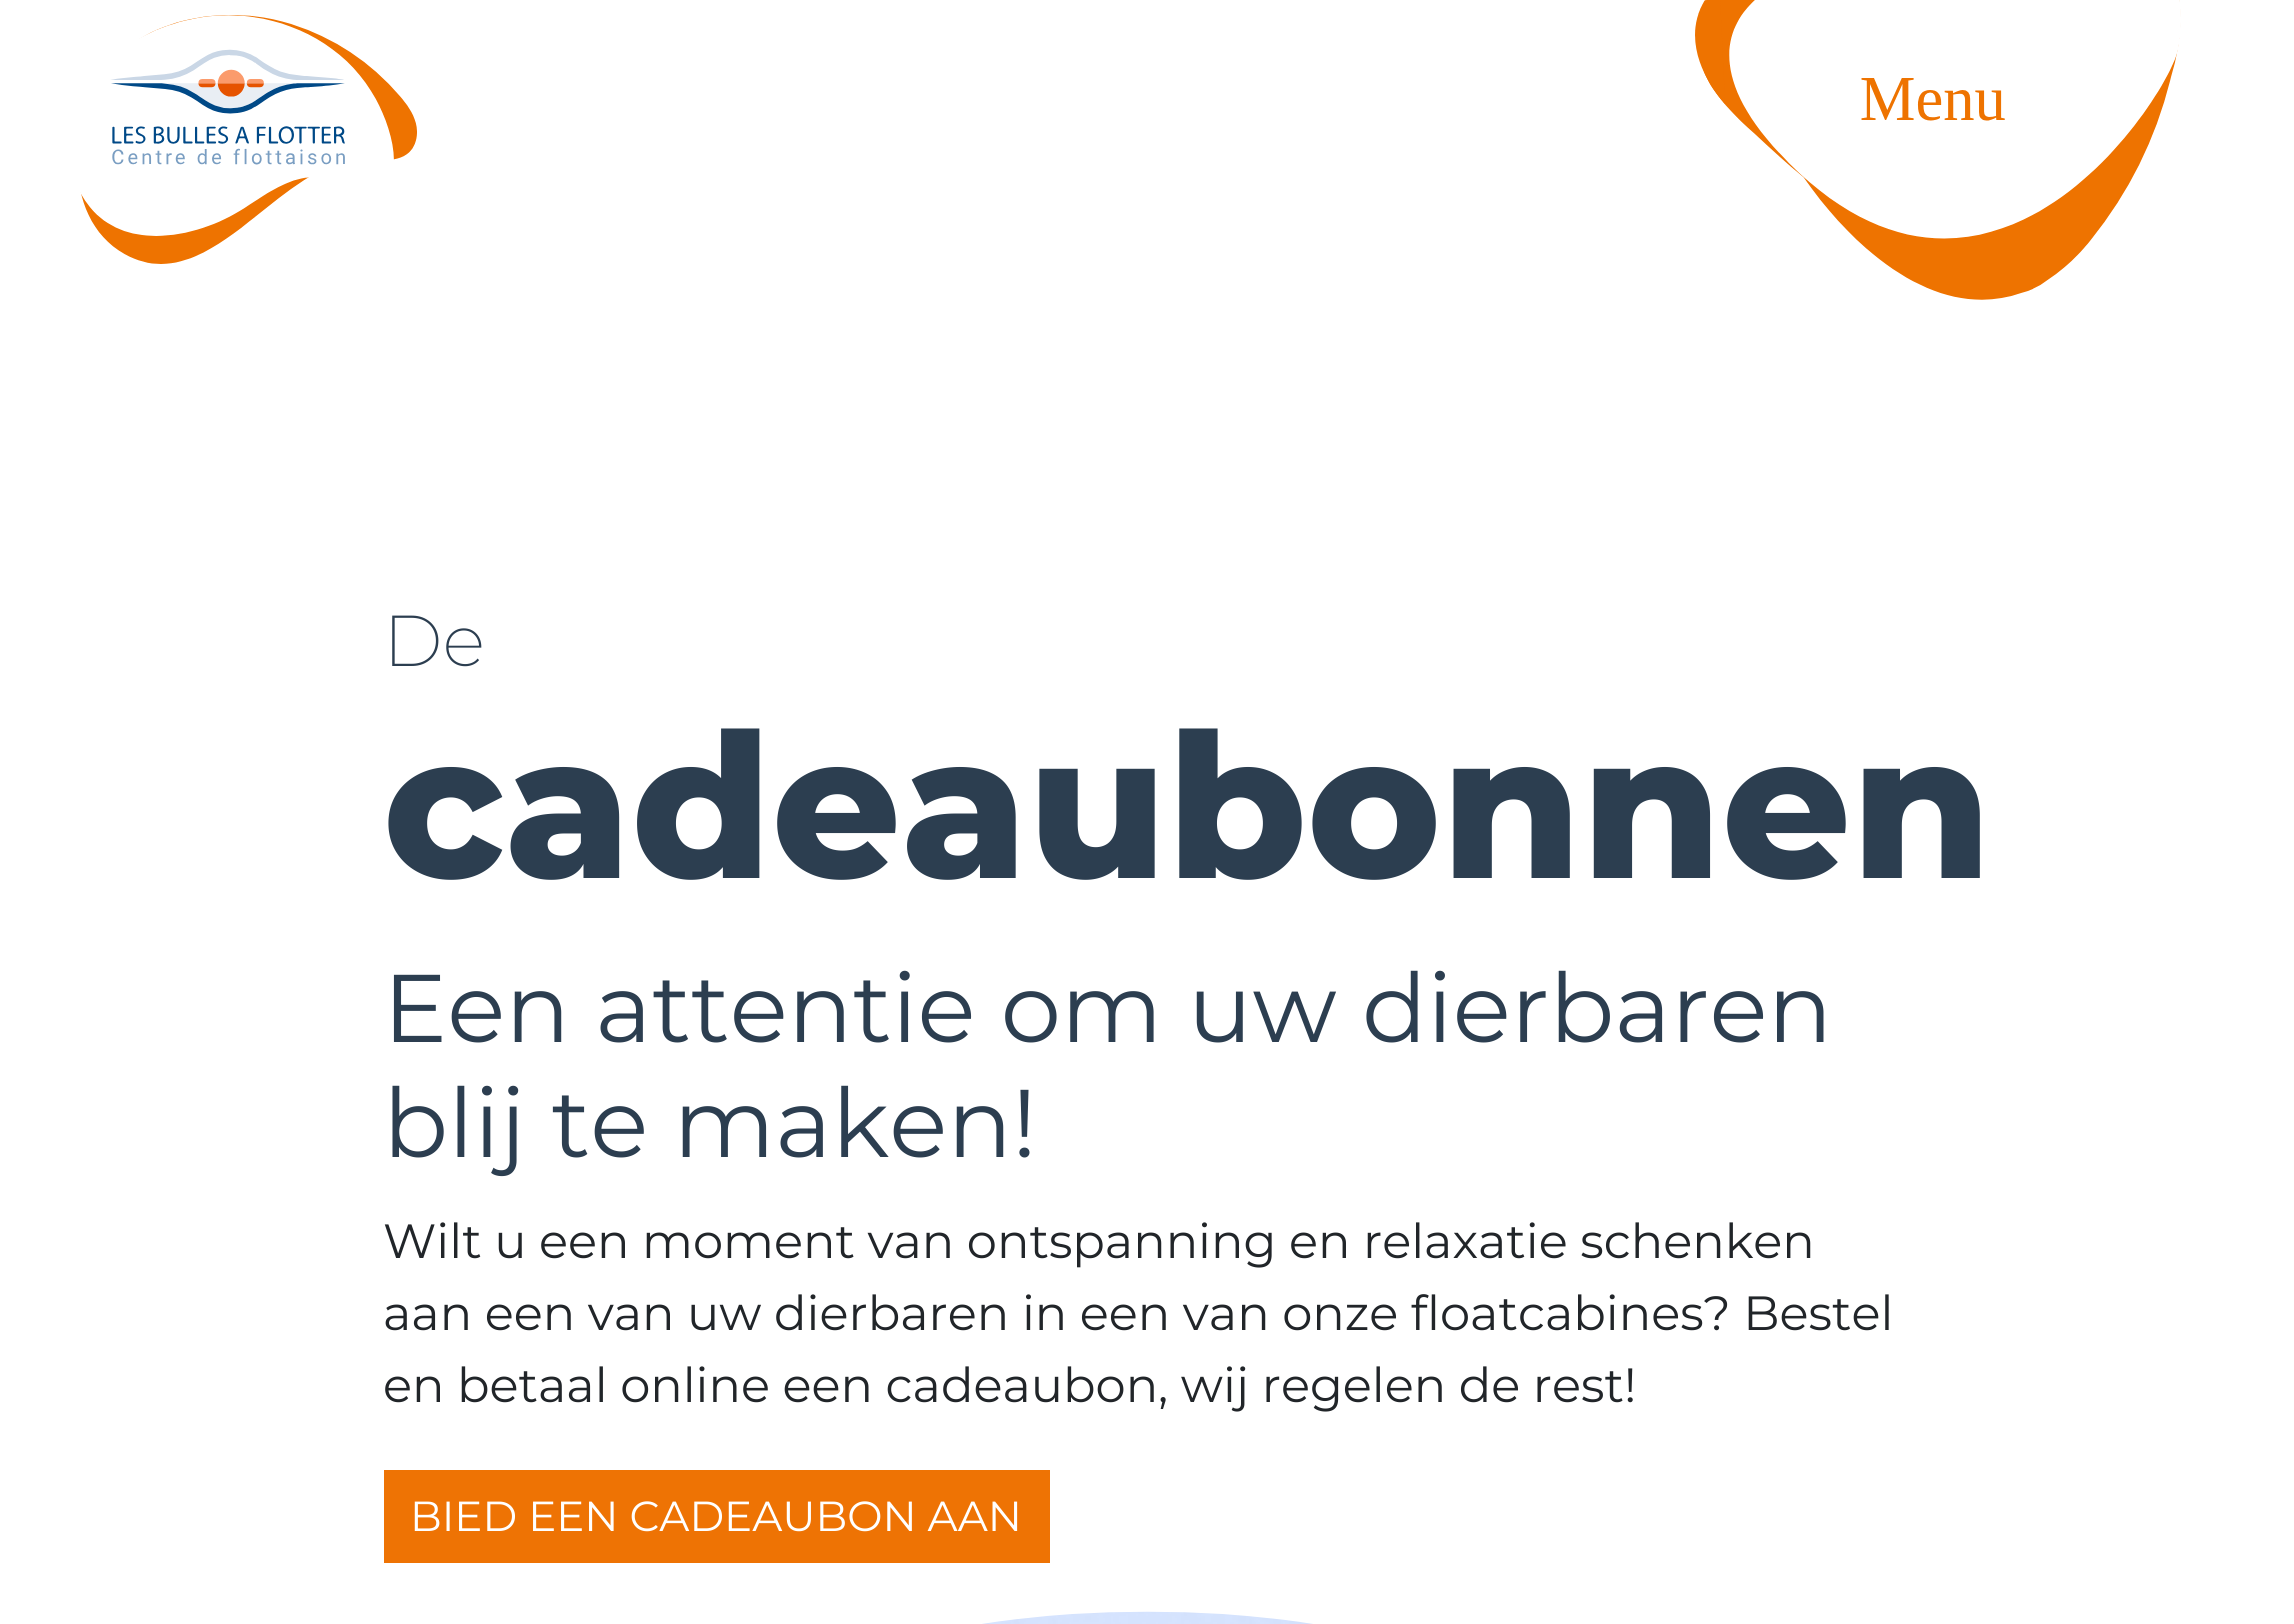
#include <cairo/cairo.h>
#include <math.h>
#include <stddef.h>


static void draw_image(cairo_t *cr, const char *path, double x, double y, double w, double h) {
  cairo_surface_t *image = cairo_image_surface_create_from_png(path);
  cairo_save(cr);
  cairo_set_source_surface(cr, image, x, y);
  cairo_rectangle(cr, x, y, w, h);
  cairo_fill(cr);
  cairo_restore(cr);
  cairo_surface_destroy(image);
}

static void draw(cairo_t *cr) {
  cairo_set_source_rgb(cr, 1, 1, 1);
  cairo_paint(cr);
  draw_image(cr, "images/1.png", 80, 15, 337, 249);
  draw_image(cr, "images/2.png", 1695, 0, 486, 300);
  cairo_set_source_rgb(cr, 238 / 255.0, 115 / 255.0, 4 / 255.0);
  cairo_rectangle(cr, 384, 1470, 666, 93);
  cairo_fill(cr);
  draw_image(cr, "images/3.png", 982, 1611, 331, 13);
  cairo_select_font_face(cr, "Montserrat ExtraLight", CAIRO_FONT_SLANT_NORMAL, CAIRO_FONT_WEIGHT_NORMAL);
  cairo_set_font_size(cr, 72);
  cairo_set_source_rgb(cr, 44 / 255.0, 62 / 255.0, 80 / 255.0);
  cairo_move_to(cr, 383, 666);
  cairo_show_text(cr, "De");
  cairo_select_font_face(cr, "Montserrat ExtraBold", CAIRO_FONT_SLANT_NORMAL, CAIRO_FONT_WEIGHT_NORMAL);
  cairo_set_font_size(cr, 201.5);
  cairo_move_to(cr, 383, 878);
  cairo_show_text(cr, "cadeaubonnen");
  cairo_select_font_face(cr, "Montserrat", CAIRO_FONT_SLANT_NORMAL, CAIRO_FONT_WEIGHT_NORMAL);
  cairo_set_font_size(cr, 96);
  cairo_move_to(cr, 383, 1042);
  cairo_show_text(cr, "Een attentie om uw dierbaren");
  cairo_move_to(cr, 383, 1157);
  cairo_show_text(cr, "blij te maken!");
  cairo_set_font_size(cr, 48);
  cairo_set_source_rgb(cr, 33 / 255.0, 37 / 255.0, 41 / 255.0);
  cairo_move_to(cr, 383, 1258);
  cairo_show_text(cr, "Wilt u een moment van ontspanning en relaxatie schenken");
  cairo_move_to(cr, 383, 1330);
  cairo_show_text(cr, "aan een van uw dierbaren in een van onze floatcabines? Bestel");
  cairo_move_to(cr, 383, 1402);
  cairo_show_text(cr, "en betaal online een cadeaubon, wij regelen de rest!");
  cairo_set_font_size(cr, 42);
  cairo_set_source_rgb(cr, 1, 1, 1);
  cairo_move_to(cr, 410, 1531);
  cairo_show_text(cr, "BIED EEN CADEAUBON AAN");
}

int main(void) {
  cairo_surface_t *surface = cairo_image_surface_create(CAIRO_FORMAT_RGB24, 2294, 1624);
  cairo_t *cr = cairo_create(surface);
  cairo_font_options_t *options = cairo_font_options_create();
  cairo_font_options_set_hint_metrics(options, CAIRO_HINT_METRICS_OFF);
  cairo_font_options_set_hint_style(options, CAIRO_HINT_STYLE_NONE);
  cairo_set_font_options(cr, options);
  cairo_set_miter_limit(cr, 4);
  draw(cr);
  cairo_surface_write_to_png(surface, "out.png");
  cairo_font_options_destroy(options);
  cairo_destroy(cr);
  cairo_surface_destroy(surface);
  return 0;
}
